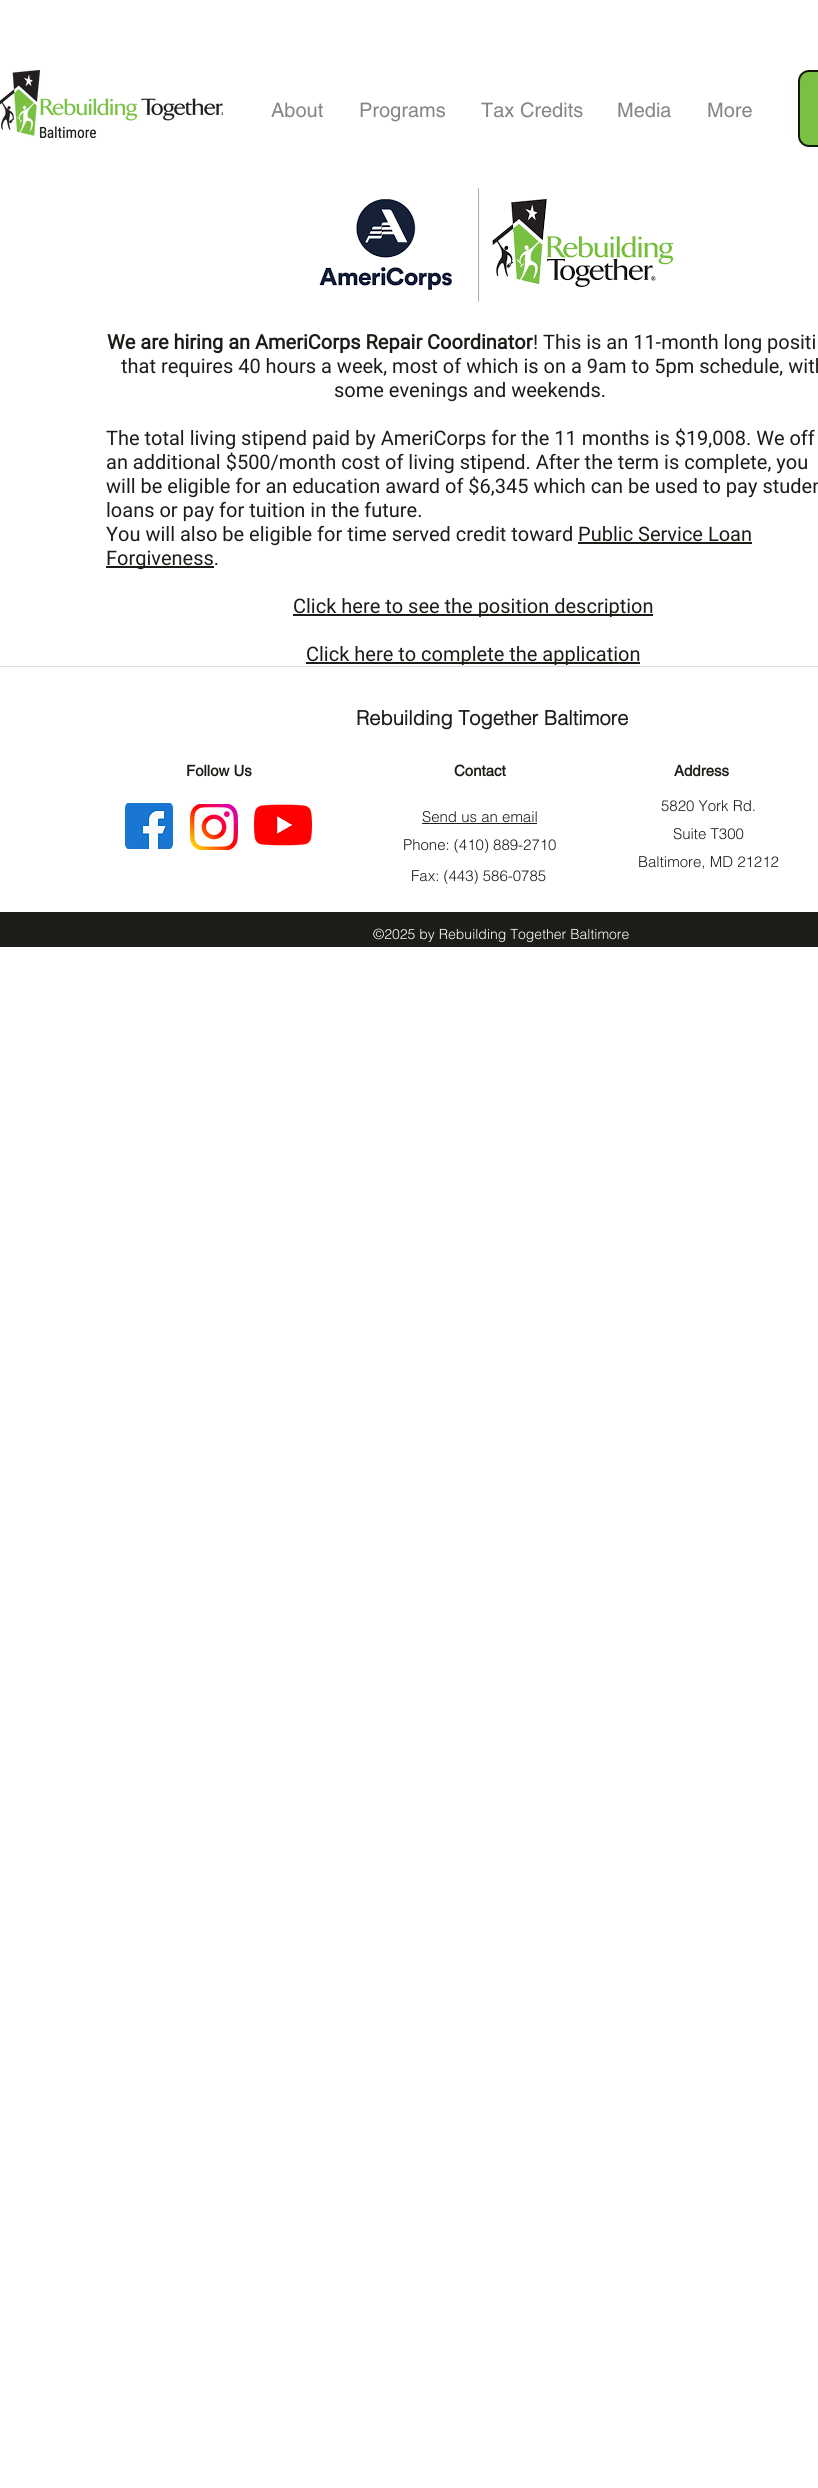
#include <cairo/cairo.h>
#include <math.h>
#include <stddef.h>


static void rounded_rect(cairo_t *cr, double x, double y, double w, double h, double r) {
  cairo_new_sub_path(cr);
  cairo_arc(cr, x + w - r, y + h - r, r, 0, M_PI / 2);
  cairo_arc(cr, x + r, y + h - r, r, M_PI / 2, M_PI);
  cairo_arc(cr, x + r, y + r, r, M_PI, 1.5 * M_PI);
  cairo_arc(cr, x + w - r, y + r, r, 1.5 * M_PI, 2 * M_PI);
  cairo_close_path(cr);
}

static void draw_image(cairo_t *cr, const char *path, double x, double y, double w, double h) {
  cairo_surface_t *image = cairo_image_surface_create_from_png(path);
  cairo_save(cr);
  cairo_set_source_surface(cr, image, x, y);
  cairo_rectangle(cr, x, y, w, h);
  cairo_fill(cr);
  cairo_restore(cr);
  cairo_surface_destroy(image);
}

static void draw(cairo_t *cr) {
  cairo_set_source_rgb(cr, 1, 1, 1);
  cairo_paint(cr);
  draw_image(cr, "images/1.png", 0, 70, 223, 68);
  cairo_set_source_rgb(cr, 122 / 255.0, 193 / 255.0, 67 / 255.0);
  rounded_rect(cr, 799, 71, 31, 75, 10);
  cairo_fill_preserve(cr);
  cairo_set_source_rgb(cr, 16 / 255.0, 26 / 255.0, 9 / 255.0);
  cairo_stroke(cr);
  draw_image(cr, "images/2.png", 319, 188, 355, 114);
  cairo_set_source_rgb(cr, 29 / 255.0, 28 / 255.0, 24 / 255.0);
  cairo_rectangle(cr, 578, 542, 174, 2);
  cairo_fill(cr);
  cairo_rectangle(cr, 106, 566, 108, 2);
  cairo_fill(cr);
  cairo_rectangle(cr, 293, 614, 360, 2);
  cairo_fill(cr);
  cairo_rectangle(cr, 306, 662, 334, 2);
  cairo_fill(cr);
  cairo_set_source_rgb(cr, 221 / 255.0, 221 / 255.0, 220 / 255.0);
  cairo_rectangle(cr, 0, 666, 818, 1);
  cairo_fill(cr);
  draw_image(cr, "images/3.png", 125, 803, 48, 46);
  draw_image(cr, "images/4.png", 190, 804, 48, 46);
  draw_image(cr, "images/5.png", 254, 804, 58, 42);
  cairo_set_source_rgb(cr, 29 / 255.0, 28 / 255.0, 24 / 255.0);
  cairo_rectangle(cr, 422, 823, 115, 1);
  cairo_fill(cr);
  cairo_rectangle(cr, 0, 912, 818, 35);
  cairo_fill(cr);
  cairo_select_font_face(cr, "helvetica", CAIRO_FONT_SLANT_NORMAL, CAIRO_FONT_WEIGHT_NORMAL);
  cairo_set_font_size(cr, 20);
  cairo_set_source_rgb(cr, 133 / 255.0, 133 / 255.0, 133 / 255.0);
  cairo_move_to(cr, 271, 117);
  cairo_show_text(cr, "About");
  cairo_move_to(cr, 359, 117);
  cairo_show_text(cr, "Programs");
  cairo_move_to(cr, 481, 117);
  cairo_show_text(cr, "Tax Credits");
  cairo_move_to(cr, 617, 117);
  cairo_show_text(cr, "Media");
  cairo_move_to(cr, 707, 117);
  cairo_show_text(cr, "More");
  cairo_select_font_face(cr, "Roboto", CAIRO_FONT_SLANT_NORMAL, CAIRO_FONT_WEIGHT_BOLD);
  cairo_set_source_rgb(cr, 29 / 255.0, 28 / 255.0, 24 / 255.0);
  cairo_move_to(cr, 107, 349);
  cairo_show_text(cr, "We are hiring an AmeriCorps Repair Coordinator");
  cairo_select_font_face(cr, "Roboto", CAIRO_FONT_SLANT_NORMAL, CAIRO_FONT_WEIGHT_NORMAL);
  cairo_move_to(cr, 533, 349);
  cairo_show_text(cr, "! This is an 11-month long positi");
  cairo_move_to(cr, 121, 373);
  cairo_show_text(cr, "that requires 40 hours a week, most of which is on a 9am to 5pm schedule, with");
  cairo_move_to(cr, 334, 397);
  cairo_show_text(cr, "some evenings and weekends.");
  cairo_move_to(cr, 106, 445);
  cairo_show_text(cr, "The total living stipend paid by AmeriCorps for the 11 months is $19,008. We off");
  cairo_move_to(cr, 106, 469);
  cairo_show_text(cr, "an additional $500/month cost of living stipend. After the term is complete, you");
  cairo_move_to(cr, 106, 493);
  cairo_show_text(cr, "will be eligible for an education award of $6,345 which can be used to pay studen");
  cairo_move_to(cr, 106, 517);
  cairo_show_text(cr, "loans or pay for tuition in the future.");
  cairo_move_to(cr, 106, 541);
  cairo_show_text(cr, "You will also be eligible for time served credit toward Public Service Loan");
  cairo_move_to(cr, 106, 565);
  cairo_show_text(cr, "Forgiveness.");
  cairo_move_to(cr, 293, 613);
  cairo_show_text(cr, "Click here to see the position description");
  cairo_move_to(cr, 306, 661);
  cairo_show_text(cr, "Click here to complete the application");
  cairo_select_font_face(cr, "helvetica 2", CAIRO_FONT_SLANT_NORMAL, CAIRO_FONT_WEIGHT_BOLD);
  cairo_move_to(cr, 356, 725);
  cairo_show_text(cr, "Rebuilding Together Baltimore");
  cairo_select_font_face(cr, "helvetica", CAIRO_FONT_SLANT_NORMAL, CAIRO_FONT_WEIGHT_BOLD);
  cairo_set_font_size(cr, 15);
  cairo_move_to(cr, 186, 776);
  cairo_show_text(cr, "Follow Us");
  cairo_move_to(cr, 454, 776);
  cairo_show_text(cr, "Contact");
  cairo_move_to(cr, 674, 776);
  cairo_show_text(cr, "Address");
  cairo_select_font_face(cr, "helvetica Light", CAIRO_FONT_SLANT_NORMAL, CAIRO_FONT_WEIGHT_NORMAL);
  cairo_move_to(cr, 422, 822);
  cairo_show_text(cr, "Send us an email");
  cairo_move_to(cr, 661, 811);
  cairo_show_text(cr, "5820 York Rd.");
  cairo_move_to(cr, 673, 839);
  cairo_show_text(cr, "Suite T300");
  cairo_move_to(cr, 638, 867);
  cairo_show_text(cr, "Baltimore, MD 21212");
  cairo_move_to(cr, 403, 850);
  cairo_show_text(cr, "Phone: (410) 889-2710");
  cairo_move_to(cr, 411, 881);
  cairo_show_text(cr, "Fax: (443) 586-0785");
  cairo_set_font_size(cr, 14);
  cairo_set_source_rgb(cr, 1, 1, 1);
  cairo_move_to(cr, 373, 939);
  cairo_show_text(cr, "©2025 by Rebuilding Together Baltimore");
}

int main(void) {
  cairo_surface_t *surface = cairo_image_surface_create(CAIRO_FORMAT_RGB24, 818, 2488);
  cairo_t *cr = cairo_create(surface);
  cairo_font_options_t *options = cairo_font_options_create();
  cairo_font_options_set_hint_metrics(options, CAIRO_HINT_METRICS_OFF);
  cairo_font_options_set_hint_style(options, CAIRO_HINT_STYLE_NONE);
  cairo_set_font_options(cr, options);
  cairo_set_miter_limit(cr, 4);
  draw(cr);
  cairo_surface_write_to_png(surface, "out.png");
  cairo_font_options_destroy(options);
  cairo_destroy(cr);
  cairo_surface_destroy(surface);
  return 0;
}
